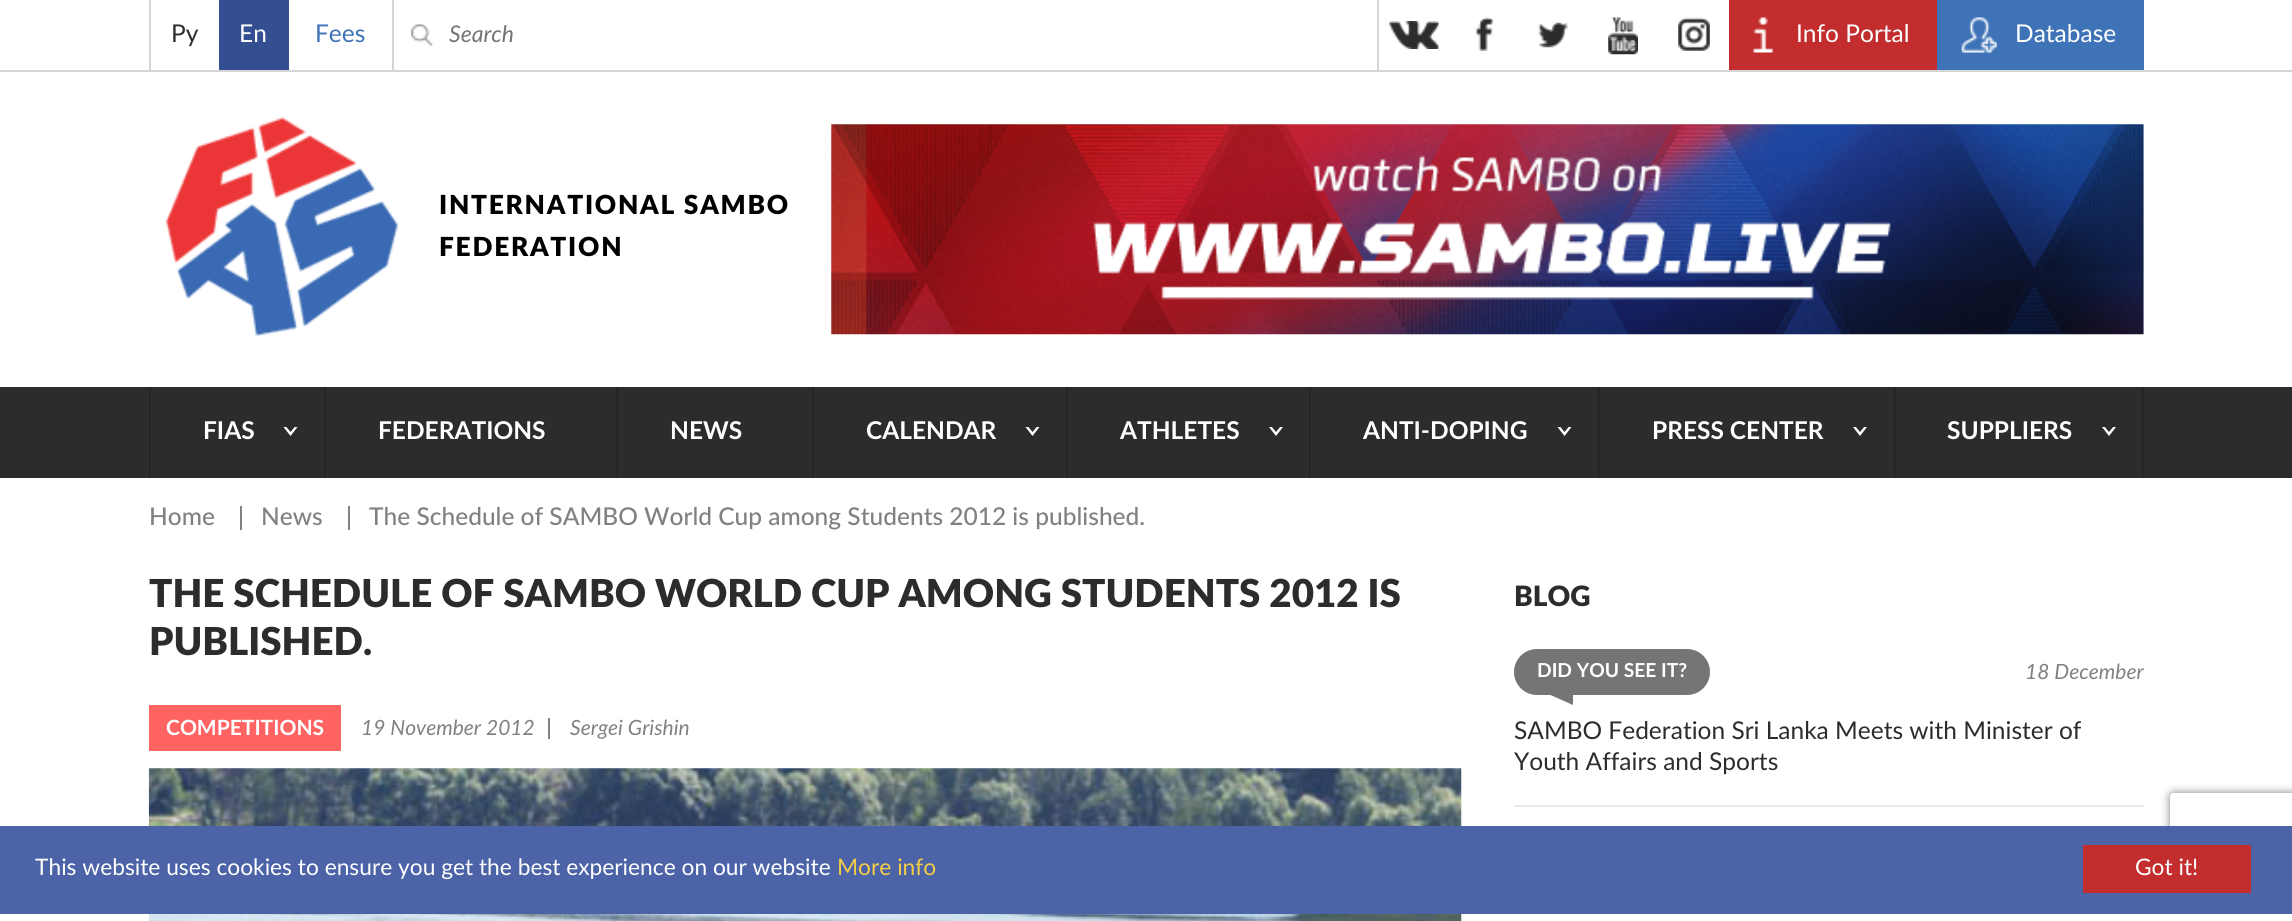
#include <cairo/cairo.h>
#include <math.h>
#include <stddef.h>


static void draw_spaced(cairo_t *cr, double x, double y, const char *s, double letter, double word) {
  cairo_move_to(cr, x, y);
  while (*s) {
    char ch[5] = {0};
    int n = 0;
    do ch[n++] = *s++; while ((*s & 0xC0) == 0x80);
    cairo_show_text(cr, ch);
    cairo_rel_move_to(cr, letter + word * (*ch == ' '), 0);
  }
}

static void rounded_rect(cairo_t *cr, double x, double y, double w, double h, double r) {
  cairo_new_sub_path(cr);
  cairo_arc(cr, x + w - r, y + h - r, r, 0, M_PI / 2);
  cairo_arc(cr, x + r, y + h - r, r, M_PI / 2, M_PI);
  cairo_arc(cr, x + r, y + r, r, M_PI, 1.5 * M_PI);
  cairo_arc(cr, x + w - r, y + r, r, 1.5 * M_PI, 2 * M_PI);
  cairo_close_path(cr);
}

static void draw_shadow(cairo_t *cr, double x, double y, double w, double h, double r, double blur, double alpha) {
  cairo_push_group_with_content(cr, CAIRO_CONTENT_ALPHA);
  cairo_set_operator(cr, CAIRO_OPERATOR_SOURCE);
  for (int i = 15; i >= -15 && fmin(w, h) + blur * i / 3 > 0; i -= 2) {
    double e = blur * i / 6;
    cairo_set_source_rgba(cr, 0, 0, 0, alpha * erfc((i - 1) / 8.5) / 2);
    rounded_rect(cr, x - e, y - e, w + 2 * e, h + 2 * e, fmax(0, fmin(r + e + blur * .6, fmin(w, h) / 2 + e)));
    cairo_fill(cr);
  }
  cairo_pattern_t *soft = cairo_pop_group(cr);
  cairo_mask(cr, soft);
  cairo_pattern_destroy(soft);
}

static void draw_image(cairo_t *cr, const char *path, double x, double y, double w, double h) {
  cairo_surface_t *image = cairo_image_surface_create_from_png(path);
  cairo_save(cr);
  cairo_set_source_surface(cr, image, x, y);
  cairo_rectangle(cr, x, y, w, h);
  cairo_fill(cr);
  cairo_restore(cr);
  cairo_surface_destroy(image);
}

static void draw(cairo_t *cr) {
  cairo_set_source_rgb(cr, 1, 1, 1);
  cairo_paint(cr);
  cairo_set_source_rgb(cr, 213 / 255.0, 213 / 255.0, 213 / 255.0);
  cairo_rectangle(cr, 0, 70, 2292, 2);
  cairo_fill(cr);
  cairo_rectangle(cr, 149, 0, 2, 70);
  cairo_fill(cr);
  cairo_set_source_rgb(cr, 51 / 255.0, 79 / 255.0, 146 / 255.0);
  cairo_rectangle(cr, 219, 0, 70, 70);
  cairo_fill(cr);
  cairo_set_source_rgb(cr, 213 / 255.0, 213 / 255.0, 213 / 255.0);
  cairo_rectangle(cr, 392, 0, 2, 70);
  cairo_fill(cr);
  draw_image(cr, "images/1.png", 411, 24, 22, 22);
  cairo_rectangle(cr, 1377, 0, 2, 70);
  cairo_fill(cr);
  draw_image(cr, "images/2.png", 1389, 21, 50, 28);
  draw_image(cr, "images/3.png", 1475, 17, 18, 34);
  draw_image(cr, "images/4.png", 1538, 22, 30, 26);
  draw_image(cr, "images/5.png", 1608, 17, 30, 38);
  draw_image(cr, "images/6.png", 1678, 17, 32, 34);
  cairo_set_source_rgb(cr, 195 / 255.0, 45 / 255.0, 45 / 255.0);
  cairo_rectangle(cr, 1729, 0, 208, 70);
  cairo_fill(cr);
  draw_image(cr, "images/7.png", 1753, 17, 20, 36);
  cairo_set_source_rgb(cr, 62 / 255.0, 115 / 255.0, 183 / 255.0);
  cairo_rectangle(cr, 1937, 0, 207, 70);
  cairo_fill(cr);
  draw_image(cr, "images/8.png", 1961, 17, 36, 36);
  draw_image(cr, "images/9.png", 166, 117, 232, 219);
  draw_image(cr, "images/10.png", 831, 124, 1313, 211);
  cairo_set_source_rgb(cr, 44 / 255.0, 44 / 255.0, 44 / 255.0);
  cairo_rectangle(cr, 0, 387, 2292, 91);
  cairo_fill(cr);
  cairo_set_source_rgb(cr, 37 / 255.0, 37 / 255.0, 37 / 255.0);
  cairo_rectangle(cr, 324, 387, 2, 91);
  cairo_fill(cr);
  cairo_rectangle(cr, 149, 387, 2, 91);
  cairo_fill(cr);
  cairo_set_source_rgb(cr, 1, 1, 1);
  cairo_new_path(cr);
  cairo_move_to(cr, 283.5, 427);
  cairo_line_to(cr, 297.5, 427);
  cairo_line_to(cr, 290.5, 436);
  cairo_close_path(cr);
  cairo_fill(cr);
  cairo_set_source_rgb(cr, 44 / 255.0, 44 / 255.0, 44 / 255.0);
  cairo_new_path(cr);
  cairo_move_to(cr, 283.5, 423.5);
  cairo_line_to(cr, 297.5, 423.5);
  cairo_line_to(cr, 290.5, 432);
  cairo_close_path(cr);
  cairo_fill(cr);
  cairo_set_source_rgb(cr, 37 / 255.0, 37 / 255.0, 37 / 255.0);
  cairo_rectangle(cr, 616, 387, 2, 91);
  cairo_fill(cr);
  cairo_rectangle(cr, 812, 387, 2, 91);
  cairo_fill(cr);
  cairo_rectangle(cr, 1066, 387, 2, 91);
  cairo_fill(cr);
  cairo_set_source_rgb(cr, 1, 1, 1);
  cairo_new_path(cr);
  cairo_move_to(cr, 1025.5, 427);
  cairo_line_to(cr, 1039.5, 427);
  cairo_line_to(cr, 1032.5, 436);
  cairo_close_path(cr);
  cairo_fill(cr);
  cairo_set_source_rgb(cr, 44 / 255.0, 44 / 255.0, 44 / 255.0);
  cairo_new_path(cr);
  cairo_move_to(cr, 1025.5, 423.5);
  cairo_line_to(cr, 1039.5, 423.5);
  cairo_line_to(cr, 1032.5, 432);
  cairo_close_path(cr);
  cairo_fill(cr);
  cairo_set_source_rgb(cr, 37 / 255.0, 37 / 255.0, 37 / 255.0);
  cairo_rectangle(cr, 1309, 387, 2, 91);
  cairo_fill(cr);
  cairo_set_source_rgb(cr, 1, 1, 1);
  cairo_new_path(cr);
  cairo_move_to(cr, 1269, 427);
  cairo_line_to(cr, 1283, 427);
  cairo_line_to(cr, 1276, 436);
  cairo_close_path(cr);
  cairo_fill(cr);
  cairo_set_source_rgb(cr, 44 / 255.0, 44 / 255.0, 44 / 255.0);
  cairo_new_path(cr);
  cairo_move_to(cr, 1269, 423.5);
  cairo_line_to(cr, 1283, 423.5);
  cairo_line_to(cr, 1276, 432);
  cairo_close_path(cr);
  cairo_fill(cr);
  cairo_set_source_rgb(cr, 37 / 255.0, 37 / 255.0, 37 / 255.0);
  cairo_rectangle(cr, 1598, 387, 2, 91);
  cairo_fill(cr);
  cairo_set_source_rgb(cr, 1, 1, 1);
  cairo_new_path(cr);
  cairo_move_to(cr, 1557.5, 427);
  cairo_line_to(cr, 1571.5, 427);
  cairo_line_to(cr, 1564.5, 436);
  cairo_close_path(cr);
  cairo_fill(cr);
  cairo_set_source_rgb(cr, 44 / 255.0, 44 / 255.0, 44 / 255.0);
  cairo_new_path(cr);
  cairo_move_to(cr, 1557.5, 423.5);
  cairo_line_to(cr, 1571.5, 423.5);
  cairo_line_to(cr, 1564.5, 432);
  cairo_close_path(cr);
  cairo_fill(cr);
  cairo_set_source_rgb(cr, 37 / 255.0, 37 / 255.0, 37 / 255.0);
  cairo_rectangle(cr, 1894, 387, 2, 91);
  cairo_fill(cr);
  cairo_set_source_rgb(cr, 1, 1, 1);
  cairo_new_path(cr);
  cairo_move_to(cr, 1853, 427);
  cairo_line_to(cr, 1867, 427);
  cairo_line_to(cr, 1860, 436);
  cairo_close_path(cr);
  cairo_fill(cr);
  cairo_set_source_rgb(cr, 44 / 255.0, 44 / 255.0, 44 / 255.0);
  cairo_new_path(cr);
  cairo_move_to(cr, 1853, 423.5);
  cairo_line_to(cr, 1867, 423.5);
  cairo_line_to(cr, 1860, 432);
  cairo_close_path(cr);
  cairo_fill(cr);
  cairo_set_source_rgb(cr, 37 / 255.0, 37 / 255.0, 37 / 255.0);
  cairo_rectangle(cr, 2142, 387, 2, 91);
  cairo_fill(cr);
  cairo_set_source_rgb(cr, 1, 1, 1);
  cairo_new_path(cr);
  cairo_move_to(cr, 2102, 427);
  cairo_line_to(cr, 2116, 427);
  cairo_line_to(cr, 2109, 436);
  cairo_close_path(cr);
  cairo_fill(cr);
  cairo_set_source_rgb(cr, 44 / 255.0, 44 / 255.0, 44 / 255.0);
  cairo_new_path(cr);
  cairo_move_to(cr, 2102, 423.5);
  cairo_line_to(cr, 2116, 423.5);
  cairo_line_to(cr, 2109, 432);
  cairo_close_path(cr);
  cairo_fill(cr);
  cairo_set_source_rgb(cr, 129 / 255.0, 129 / 255.0, 129 / 255.0);
  cairo_rectangle(cr, 240, 506, 2, 24);
  cairo_fill(cr);
  cairo_rectangle(cr, 348, 506, 2, 24);
  cairo_fill(cr);
  cairo_set_source_rgb(cr, 1, 100 / 255.0, 99 / 255.0);
  cairo_rectangle(cr, 149, 705, 192, 46);
  cairo_fill(cr);
  cairo_set_source_rgb(cr, 129 / 255.0, 129 / 255.0, 129 / 255.0);
  cairo_rectangle(cr, 548, 718, 2, 21);
  cairo_fill(cr);
  draw_image(cr, "images/11.png", 148, 768, 1314, 153);
  cairo_set_source_rgb(cr, 235 / 255.0, 235 / 255.0, 235 / 255.0);
  cairo_rectangle(cr, 1514, 805, 630, 2);
  cairo_fill(cr);
  cairo_set_source_rgb(cr, 117 / 255.0, 117 / 255.0, 117 / 255.0);
  rounded_rect(cr, 1514, 649, 196, 46, 23);
  cairo_fill(cr);
  cairo_new_path(cr);
  cairo_move_to(cr, 1573, 695);
  cairo_line_to(cr, 1573, 705);
  cairo_line_to(cr, 1550.5, 695);
  cairo_close_path(cr);
  cairo_fill(cr);
  cairo_save(cr);
  cairo_set_fill_rule(cr, CAIRO_FILL_RULE_EVEN_ODD);
  cairo_new_path(cr);
  cairo_move_to(cr, 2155, 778);
  cairo_line_to(cr, 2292, 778);
  cairo_line_to(cr, 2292, 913);
  cairo_line_to(cr, 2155, 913);
  cairo_close_path(cr);
  cairo_move_to(cr, 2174, 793);
  cairo_line_to(cr, 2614, 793);
  cairo_curve_to(cr, 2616, 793, 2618, 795, 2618, 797);
  cairo_line_to(cr, 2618, 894);
  cairo_curve_to(cr, 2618, 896, 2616, 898, 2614, 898);
  cairo_line_to(cr, 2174, 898);
  cairo_curve_to(cr, 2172, 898, 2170, 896, 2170, 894);
  cairo_line_to(cr, 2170, 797);
  cairo_curve_to(cr, 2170, 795, 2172, 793, 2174, 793);
  cairo_close_path(cr);
  cairo_clip(cr);
  cairo_set_source_rgb(cr, 128 / 255.0, 128 / 255.0, 128 / 255.0);
  draw_shadow(cr, 2170, 793, 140, 105, 4, 4.5, 1);
  cairo_restore(cr);
  cairo_set_source_rgb(cr, 76 / 255.0, 99 / 255.0, 168 / 255.0);
  cairo_rectangle(cr, 0, 826, 2292, 88);
  cairo_fill(cr);
  cairo_set_source_rgb(cr, 195 / 255.0, 45 / 255.0, 45 / 255.0);
  cairo_rectangle(cr, 2083, 845, 168, 48);
  cairo_fill(cr);
  cairo_select_font_face(cr, "Lato", CAIRO_FONT_SLANT_NORMAL, CAIRO_FONT_WEIGHT_NORMAL);
  cairo_set_font_size(cr, 24.5);
  cairo_set_source_rgb(cr, 44 / 255.0, 44 / 255.0, 44 / 255.0);
  cairo_move_to(cr, 171, 42);
  cairo_show_text(cr, "Ру");
  cairo_set_source_rgb(cr, 1, 1, 1);
  cairo_move_to(cr, 239, 42);
  cairo_show_text(cr, "En");
  cairo_set_source_rgb(cr, 62 / 255.0, 115 / 255.0, 183 / 255.0);
  cairo_move_to(cr, 315, 42);
  cairo_show_text(cr, "Fees");
  cairo_select_font_face(cr, "Lato", CAIRO_FONT_SLANT_ITALIC, CAIRO_FONT_WEIGHT_NORMAL);
  cairo_set_font_size(cr, 23);
  cairo_set_source_rgb(cr, 117 / 255.0, 117 / 255.0, 117 / 255.0);
  cairo_move_to(cr, 449, 42);
  cairo_show_text(cr, "Search");
  cairo_select_font_face(cr, "Lato", CAIRO_FONT_SLANT_NORMAL, CAIRO_FONT_WEIGHT_NORMAL);
  cairo_set_font_size(cr, 24.5);
  cairo_set_source_rgb(cr, 1, 1, 1);
  cairo_move_to(cr, 1796, 42);
  cairo_show_text(cr, "Info Portal");
  cairo_move_to(cr, 2015, 42);
  cairo_show_text(cr, "Database");
  cairo_select_font_face(cr, "Lato Black", CAIRO_FONT_SLANT_NORMAL, CAIRO_FONT_WEIGHT_NORMAL);
  cairo_set_font_size(cr, 26.25);
  cairo_set_source_rgb(cr, 0, 0, 0);
  draw_spaced(cr, 439, 214, "INTERNATIONAL SAMBO", 1.75, 0);
  draw_spaced(cr, 439, 256, "FEDERATION", 1.75, 0);
  cairo_select_font_face(cr, "Lato", CAIRO_FONT_SLANT_NORMAL, CAIRO_FONT_WEIGHT_BOLD);
  cairo_set_font_size(cr, 24.5);
  cairo_set_source_rgb(cr, 1, 1, 1);
  cairo_move_to(cr, 203, 439);
  cairo_show_text(cr, "FIAS");
  cairo_move_to(cr, 378, 439);
  cairo_show_text(cr, "FEDERATIONS");
  cairo_move_to(cr, 670, 439);
  cairo_show_text(cr, "NEWS");
  cairo_move_to(cr, 866, 439);
  cairo_show_text(cr, "CALENDAR");
  cairo_move_to(cr, 1120, 439);
  cairo_show_text(cr, "ATHLETES");
  cairo_move_to(cr, 1363, 439);
  cairo_show_text(cr, "ANTI-DOPING");
  cairo_move_to(cr, 1652, 439);
  cairo_show_text(cr, "PRESS CENTER");
  cairo_move_to(cr, 1947, 439);
  cairo_show_text(cr, "SUPPLIERS");
  cairo_select_font_face(cr, "Lato Medium", CAIRO_FONT_SLANT_NORMAL, CAIRO_FONT_WEIGHT_NORMAL);
  cairo_set_source_rgb(cr, 129 / 255.0, 129 / 255.0, 129 / 255.0);
  cairo_move_to(cr, 149, 525);
  cairo_show_text(cr, "Home");
  cairo_move_to(cr, 261, 525);
  cairo_show_text(cr, "News");
  cairo_move_to(cr, 369, 525);
  cairo_show_text(cr, "The Schedule of SAMBO World Cup among Students 2012 is published.");
  cairo_select_font_face(cr, "Lato Black", CAIRO_FONT_SLANT_NORMAL, CAIRO_FONT_WEIGHT_NORMAL);
  cairo_set_font_size(cr, 38.5);
  cairo_set_source_rgb(cr, 44 / 255.0, 44 / 255.0, 44 / 255.0);
  cairo_move_to(cr, 149, 607);
  cairo_show_text(cr, "THE SCHEDULE OF SAMBO WORLD CUP AMONG STUDENTS 2012 IS");
  cairo_move_to(cr, 149, 655);
  cairo_show_text(cr, "PUBLISHED.");
  cairo_select_font_face(cr, "Lato", CAIRO_FONT_SLANT_NORMAL, CAIRO_FONT_WEIGHT_BOLD);
  cairo_set_font_size(cr, 21);
  cairo_set_source_rgb(cr, 1, 1, 1);
  cairo_move_to(cr, 166, 735);
  cairo_show_text(cr, "COMPETITIONS");
  cairo_select_font_face(cr, "Lato", CAIRO_FONT_SLANT_ITALIC, CAIRO_FONT_WEIGHT_NORMAL);
  cairo_set_source_rgb(cr, 129 / 255.0, 129 / 255.0, 129 / 255.0);
  cairo_move_to(cr, 361, 735);
  cairo_show_text(cr, "19 November 2012");
  cairo_move_to(cr, 570, 735);
  cairo_show_text(cr, "Sergei Grishin");
  cairo_select_font_face(cr, "Lato Black", CAIRO_FONT_SLANT_NORMAL, CAIRO_FONT_WEIGHT_NORMAL);
  cairo_set_font_size(cr, 28);
  cairo_set_source_rgb(cr, 44 / 255.0, 44 / 255.0, 44 / 255.0);
  cairo_move_to(cr, 1514, 606);
  cairo_show_text(cr, "BLOG");
  cairo_select_font_face(cr, "Lato", CAIRO_FONT_SLANT_NORMAL, CAIRO_FONT_WEIGHT_BOLD);
  cairo_set_font_size(cr, 19.25);
  cairo_set_source_rgb(cr, 1, 1, 1);
  cairo_move_to(cr, 1537, 677);
  cairo_show_text(cr, "DID YOU SEE IT?");
  cairo_select_font_face(cr, "Lato", CAIRO_FONT_SLANT_ITALIC, CAIRO_FONT_WEIGHT_NORMAL);
  cairo_set_font_size(cr, 21);
  cairo_set_source_rgb(cr, 129 / 255.0, 129 / 255.0, 129 / 255.0);
  cairo_move_to(cr, 2025, 679);
  cairo_show_text(cr, "18 December");
  cairo_select_font_face(cr, "Lato", CAIRO_FONT_SLANT_NORMAL, CAIRO_FONT_WEIGHT_NORMAL);
  cairo_set_font_size(cr, 24.5);
  cairo_set_source_rgb(cr, 44 / 255.0, 44 / 255.0, 44 / 255.0);
  cairo_move_to(cr, 1514, 739);
  cairo_show_text(cr, "SAMBO Federation Sri Lanka Meets with Minister of");
  cairo_move_to(cr, 1514, 770);
  cairo_show_text(cr, "Youth Affairs and Sports");
  cairo_set_font_size(cr, 22.75);
  cairo_set_source_rgb(cr, 1, 1, 1);
  cairo_move_to(cr, 35, 875);
  cairo_show_text(cr, "This website uses cookies to ensure you get the best experience on our website");
  cairo_set_source_rgb(cr, 244 / 255.0, 205 / 255.0, 71 / 255.0);
  cairo_move_to(cr, 837, 875);
  cairo_show_text(cr, "More info");
  cairo_set_source_rgb(cr, 1, 1, 1);
  cairo_move_to(cr, 2135, 875);
  cairo_show_text(cr, "Got it!");
}

int main(void) {
  cairo_surface_t *surface = cairo_image_surface_create(CAIRO_FORMAT_RGB24, 2292, 921);
  cairo_t *cr = cairo_create(surface);
  cairo_font_options_t *options = cairo_font_options_create();
  cairo_font_options_set_hint_metrics(options, CAIRO_HINT_METRICS_OFF);
  cairo_font_options_set_hint_style(options, CAIRO_HINT_STYLE_NONE);
  cairo_set_font_options(cr, options);
  cairo_set_miter_limit(cr, 4);
  draw(cr);
  cairo_surface_write_to_png(surface, "out.png");
  cairo_font_options_destroy(options);
  cairo_destroy(cr);
  cairo_surface_destroy(surface);
  return 0;
}
